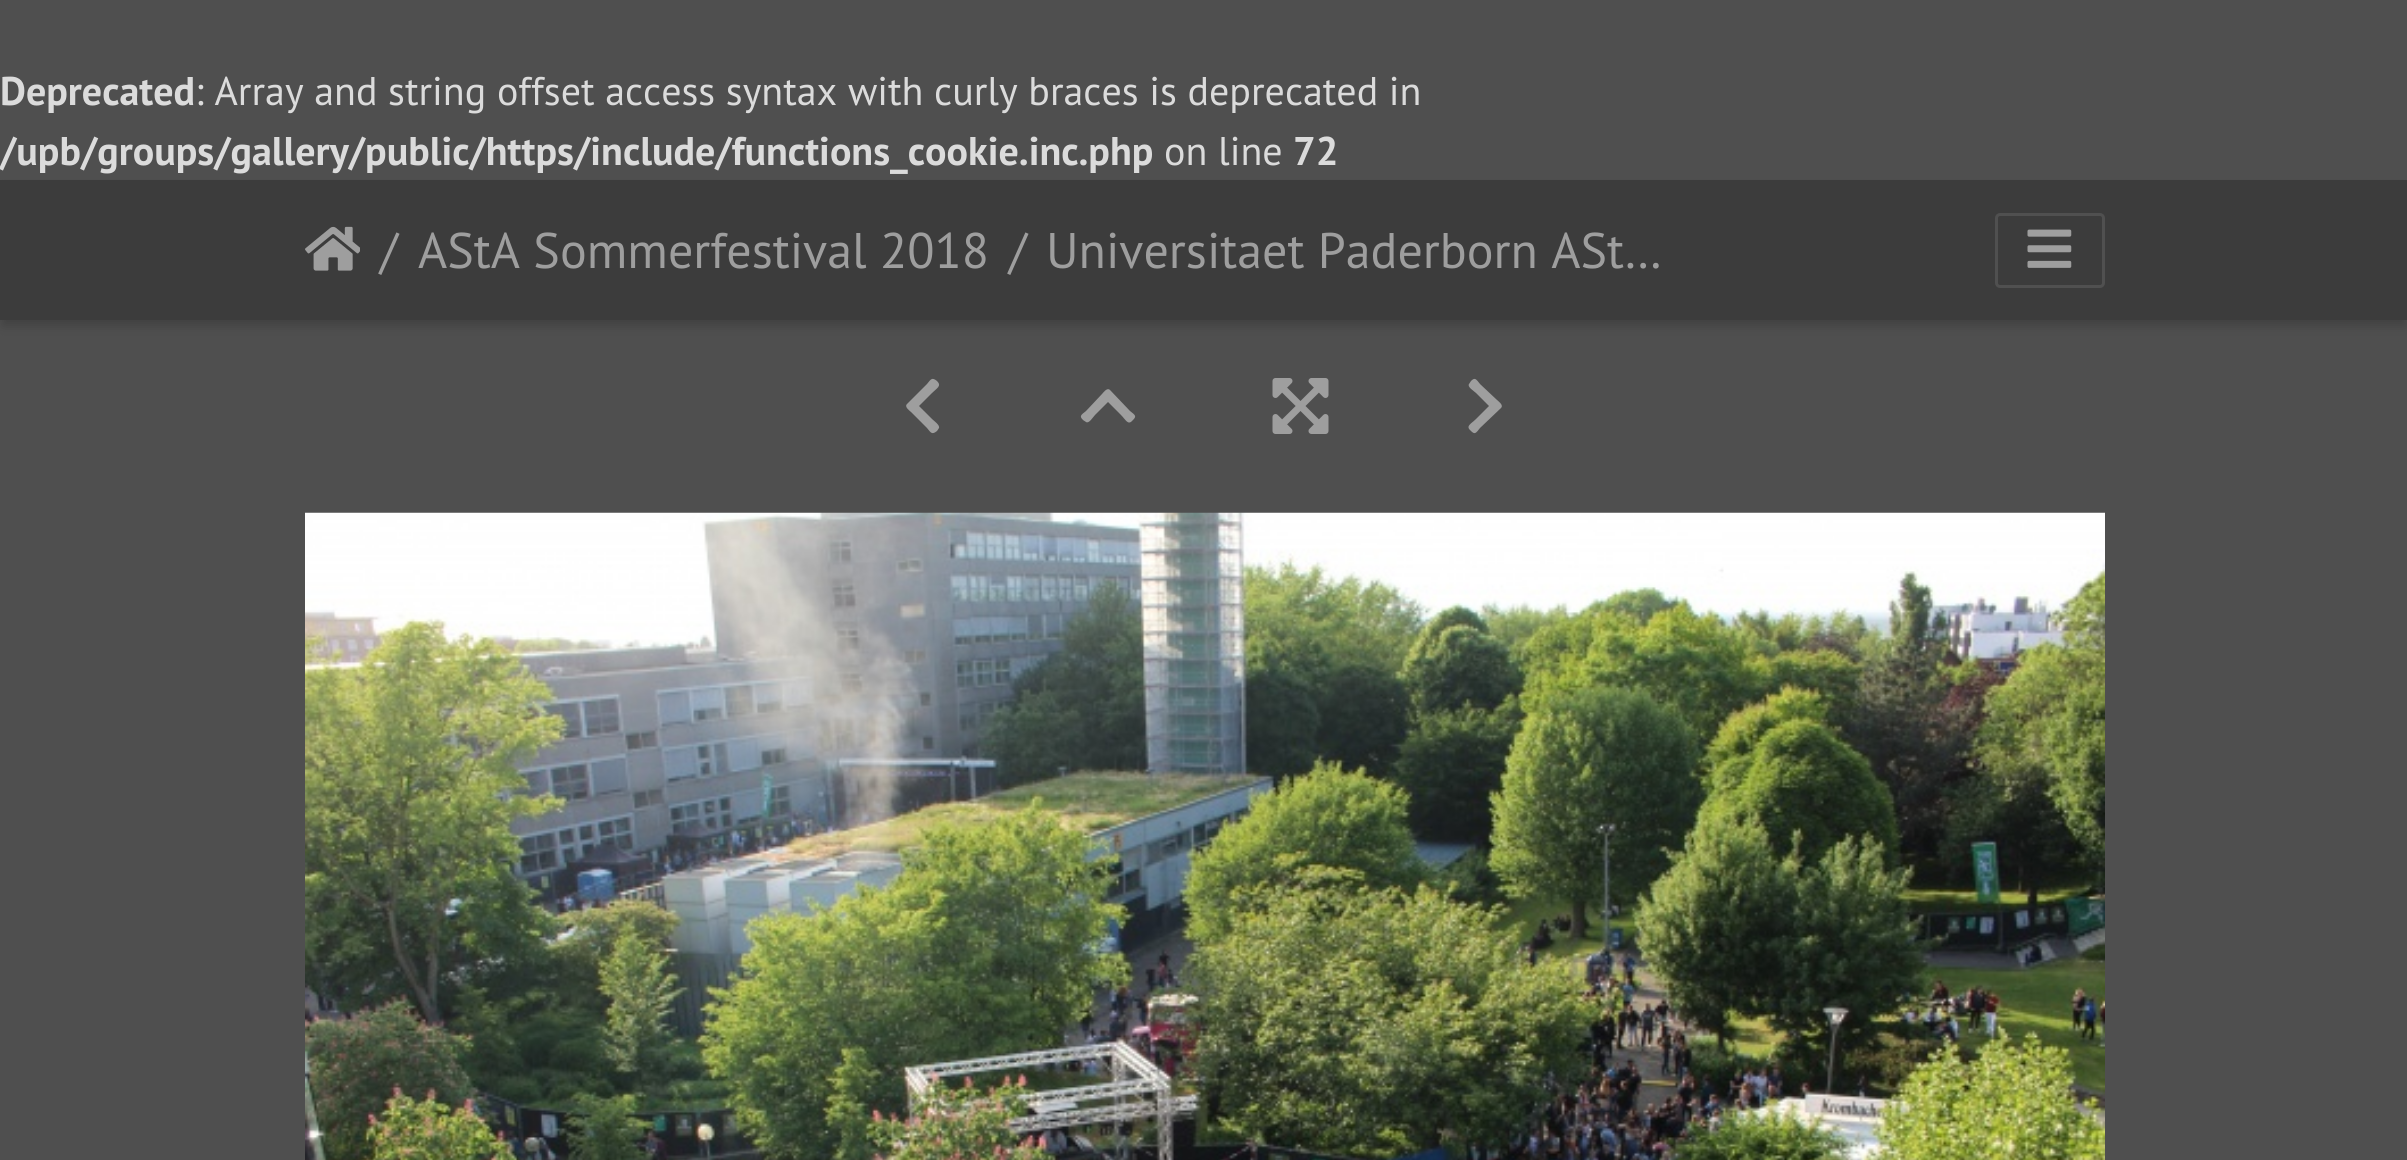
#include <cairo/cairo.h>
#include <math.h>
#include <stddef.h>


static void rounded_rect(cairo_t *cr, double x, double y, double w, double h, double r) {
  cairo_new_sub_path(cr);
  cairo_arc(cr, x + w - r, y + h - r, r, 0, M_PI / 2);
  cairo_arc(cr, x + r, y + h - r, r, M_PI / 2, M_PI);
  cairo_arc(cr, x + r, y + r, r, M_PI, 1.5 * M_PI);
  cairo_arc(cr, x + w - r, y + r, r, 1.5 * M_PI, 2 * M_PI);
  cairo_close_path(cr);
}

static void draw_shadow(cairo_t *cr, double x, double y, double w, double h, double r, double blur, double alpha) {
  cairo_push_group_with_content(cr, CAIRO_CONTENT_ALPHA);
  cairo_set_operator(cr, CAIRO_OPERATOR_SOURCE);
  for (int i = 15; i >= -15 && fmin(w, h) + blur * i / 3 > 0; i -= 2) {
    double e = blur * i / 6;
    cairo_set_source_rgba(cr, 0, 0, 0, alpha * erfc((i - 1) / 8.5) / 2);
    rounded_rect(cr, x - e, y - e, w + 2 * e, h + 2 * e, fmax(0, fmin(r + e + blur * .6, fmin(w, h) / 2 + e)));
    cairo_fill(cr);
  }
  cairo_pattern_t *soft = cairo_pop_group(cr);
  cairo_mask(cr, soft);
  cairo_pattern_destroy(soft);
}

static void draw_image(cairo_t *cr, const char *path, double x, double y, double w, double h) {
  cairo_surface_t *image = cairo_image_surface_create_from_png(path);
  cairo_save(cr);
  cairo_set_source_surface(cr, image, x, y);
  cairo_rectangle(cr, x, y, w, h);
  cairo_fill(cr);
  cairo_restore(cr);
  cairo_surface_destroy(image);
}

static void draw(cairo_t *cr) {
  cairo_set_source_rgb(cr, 79 / 255.0, 79 / 255.0, 79 / 255.0);
  cairo_paint(cr);
  cairo_set_source_rgb(cr, 0, 0, 0);
  draw_shadow(cr, 3, 190, 2402, 135, 0, 6, 0.2);
  cairo_set_source_rgb(cr, 60 / 255.0, 60 / 255.0, 60 / 255.0);
  cairo_rectangle(cr, 0, 180, 2407, 140);
  cairo_fill(cr);
  draw_image(cr, "images/1.png", 305, 226, 55, 45);
  rounded_rect(cr, 1996.5, 214.5, 107, 72, 3.5);
  cairo_set_source_rgb(cr, 80 / 255.0, 80 / 255.0, 80 / 255.0);
  cairo_set_line_width(cr, 3);
  cairo_stroke(cr);
  draw_image(cr, "images/2.png", 2027, 229, 45, 39);
  cairo_set_source_rgb(cr, 158 / 255.0, 158 / 255.0, 158 / 255.0);
  cairo_new_path(cr);
  cairo_move_to(cr, 907, 404);
  cairo_line_to(cr, 927, 384);
  cairo_curve_to(cr, 931, 379, 932, 377, 937, 381);
  cairo_curve_to(cr, 942, 386, 937, 388, 932, 393);
  cairo_line_to(cr, 919, 406);
  cairo_line_to(cr, 932, 419);
  cairo_curve_to(cr, 934, 421, 940, 425, 939, 428);
  cairo_line_to(cr, 937, 431);
  cairo_curve_to(cr, 932, 435, 931, 433, 927, 428);
  cairo_line_to(cr, 911, 412);
  cairo_curve_to(cr, 910, 411, 904, 407, 907, 404);
  cairo_close_path(cr);
  cairo_fill(cr);
  cairo_new_path(cr);
  cairo_move_to(cr, 1110, 390);
  cairo_line_to(cr, 1130, 411);
  cairo_curve_to(cr, 1135, 415, 1137, 416, 1133, 420);
  cairo_curve_to(cr, 1128, 426, 1126, 420, 1121, 415);
  cairo_line_to(cr, 1108, 402);
  cairo_line_to(cr, 1095, 415);
  cairo_curve_to(cr, 1093, 417, 1089, 424, 1086, 422);
  cairo_line_to(cr, 1083, 420);
  cairo_curve_to(cr, 1079, 416, 1081, 415, 1086, 411);
  cairo_line_to(cr, 1102, 394);
  cairo_curve_to(cr, 1103, 393, 1107, 387, 1110, 390);
  cairo_close_path(cr);
  cairo_fill(cr);
  draw_image(cr, "images/3.png", 1272, 378, 57, 56);
  cairo_new_path(cr);
  cairo_move_to(cr, 1501, 408);
  cairo_line_to(cr, 1480, 428);
  cairo_curve_to(cr, 1476, 433, 1475, 435, 1471, 431);
  cairo_curve_to(cr, 1465, 426, 1471, 424, 1476, 419);
  cairo_line_to(cr, 1489, 406);
  cairo_line_to(cr, 1476, 393);
  cairo_curve_to(cr, 1474, 391, 1467, 387, 1469, 384);
  cairo_line_to(cr, 1471, 381);
  cairo_curve_to(cr, 1475, 377, 1476, 379, 1480, 384);
  cairo_line_to(cr, 1497, 400);
  cairo_curve_to(cr, 1498, 401, 1504, 405, 1501, 408);
  cairo_close_path(cr);
  cairo_fill(cr);
  draw_image(cr, "images/4.png", 305, 512, 1800, 648);
  cairo_select_font_face(cr, "PT Sans", CAIRO_FONT_SLANT_NORMAL, CAIRO_FONT_WEIGHT_BOLD);
  cairo_set_font_size(cr, 40);
  cairo_set_source_rgb(cr, 219 / 255.0, 219 / 255.0, 219 / 255.0);
  cairo_move_to(cr, 0, 105);
  cairo_show_text(cr, "Deprecated");
  cairo_select_font_face(cr, "PT Sans", CAIRO_FONT_SLANT_NORMAL, CAIRO_FONT_WEIGHT_NORMAL);
  cairo_move_to(cr, 195, 105);
  cairo_show_text(cr, ": Array and string offset access syntax with curly braces is deprecated in");
  cairo_select_font_face(cr, "PT Sans", CAIRO_FONT_SLANT_NORMAL, CAIRO_FONT_WEIGHT_BOLD);
  cairo_move_to(cr, 0, 165);
  cairo_show_text(cr, "/upb/groups/gallery/public/https/include/functions_cookie.inc.php");
  cairo_select_font_face(cr, "PT Sans", CAIRO_FONT_SLANT_NORMAL, CAIRO_FONT_WEIGHT_NORMAL);
  cairo_move_to(cr, 1164, 165);
  cairo_show_text(cr, "on line");
  cairo_select_font_face(cr, "PT Sans", CAIRO_FONT_SLANT_NORMAL, CAIRO_FONT_WEIGHT_BOLD);
  cairo_move_to(cr, 1293, 165);
  cairo_show_text(cr, "72");
  cairo_select_font_face(cr, "PT Sans", CAIRO_FONT_SLANT_NORMAL, CAIRO_FONT_WEIGHT_NORMAL);
  cairo_set_font_size(cr, 50);
  cairo_set_source_rgb(cr, 158 / 255.0, 158 / 255.0, 158 / 255.0);
  cairo_move_to(cr, 380, 268);
  cairo_show_text(cr, "/");
  cairo_move_to(cr, 418, 268);
  cairo_show_text(cr, "AStA Sommerfestival 2018");
  cairo_move_to(cr, 1009, 268);
  cairo_show_text(cr, "/");
  cairo_move_to(cr, 1046, 268);
  cairo_show_text(cr, "Universitaet Paderborn ASt…");
}

int main(void) {
  cairo_surface_t *surface = cairo_image_surface_create(CAIRO_FORMAT_RGB24, 2407, 1160);
  cairo_t *cr = cairo_create(surface);
  cairo_font_options_t *options = cairo_font_options_create();
  cairo_font_options_set_hint_metrics(options, CAIRO_HINT_METRICS_OFF);
  cairo_font_options_set_hint_style(options, CAIRO_HINT_STYLE_NONE);
  cairo_set_font_options(cr, options);
  cairo_set_miter_limit(cr, 4);
  draw(cr);
  cairo_surface_write_to_png(surface, "out.png");
  cairo_font_options_destroy(options);
  cairo_destroy(cr);
  cairo_surface_destroy(surface);
  return 0;
}
